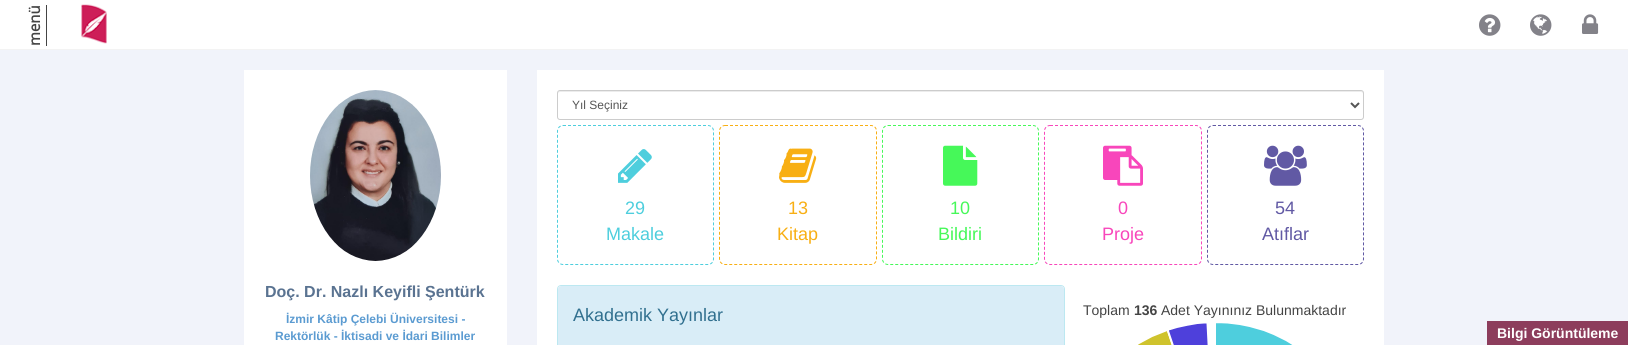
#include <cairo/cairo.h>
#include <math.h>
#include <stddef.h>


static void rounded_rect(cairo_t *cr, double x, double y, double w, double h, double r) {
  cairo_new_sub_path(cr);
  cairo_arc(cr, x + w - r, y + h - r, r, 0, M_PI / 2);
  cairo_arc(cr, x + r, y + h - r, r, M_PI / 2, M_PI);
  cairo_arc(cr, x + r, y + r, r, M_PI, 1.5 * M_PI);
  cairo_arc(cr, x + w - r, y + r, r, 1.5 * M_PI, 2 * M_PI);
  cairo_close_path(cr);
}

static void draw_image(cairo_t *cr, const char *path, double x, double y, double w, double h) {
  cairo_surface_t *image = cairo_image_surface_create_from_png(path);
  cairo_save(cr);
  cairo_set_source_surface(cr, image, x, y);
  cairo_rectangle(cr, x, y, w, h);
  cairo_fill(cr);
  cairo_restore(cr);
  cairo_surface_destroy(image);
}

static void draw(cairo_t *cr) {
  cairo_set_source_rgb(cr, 241 / 255.0, 243 / 255.0, 250 / 255.0);
  cairo_paint(cr);
  cairo_set_source_rgb(cr, 1, 1, 1);
  cairo_rectangle(cr, 0, 0, 1628, 49);
  cairo_fill(cr);
  cairo_set_source_rgb(cr, 243 / 255.0, 243 / 255.0, 243 / 255.0);
  cairo_rectangle(cr, 0, 49, 1628, 1);
  cairo_fill(cr);
  cairo_set_source_rgb(cr, 68 / 255.0, 68 / 255.0, 68 / 255.0);
  cairo_rectangle(cr, 46, 5, 1, 41);
  cairo_fill(cr);
  draw_image(cr, "images/1.png", 81, 4, 26, 40);
  draw_image(cr, "images/2.png", 1479, 14, 22, 22);
  draw_image(cr, "images/3.png", 1530, 14, 22, 22);
  draw_image(cr, "images/4.png", 1582, 14, 17, 20);
  cairo_set_source_rgb(cr, 1, 1, 1);
  cairo_rectangle(cr, 244, 70, 263, 275);
  cairo_fill(cr);
  draw_image(cr, "images/5.png", 310, 90, 131, 171);
  cairo_rectangle(cr, 537, 70, 847, 275);
  cairo_fill(cr);
  cairo_set_source_rgb(cr, 236 / 255.0, 236 / 255.0, 236 / 255.0);
  cairo_new_path(cr);
  cairo_move_to(cr, 560, 92);
  cairo_line_to(cr, 1361, 92);
  cairo_curve_to(cr, 1362, 92, 1363, 93, 1363, 94);
  cairo_curve_to(cr, 1363, 93, 1363, 91, 1361, 91);
  cairo_line_to(cr, 560, 91);
  cairo_curve_to(cr, 558, 91, 558, 93, 558, 94);
  cairo_curve_to(cr, 558, 93, 559, 92, 560, 92);
  cairo_close_path(cr);
  cairo_fill(cr);
  rounded_rect(cr, 557.5, 90.5, 806, 29, 2.5);
  cairo_set_source_rgb(cr, 204 / 255.0, 204 / 255.0, 204 / 255.0);
  cairo_set_line_width(cr, 1);
  cairo_stroke(cr);
  cairo_new_path(cr);
  cairo_move_to(cr, 1351, 103);
  cairo_line_to(cr, 1355, 107);
  cairo_line_to(cr, 1359, 103);
  cairo_set_source_rgb(cr, 85 / 255.0, 85 / 255.0, 85 / 255.0);
  cairo_set_line_width(cr, 2);
  cairo_stroke(cr);
  cairo_new_path(cr);
  cairo_move_to(cr, 563, 125.5);
  cairo_line_to(cr, 708, 125.5);
  cairo_curve_to(cr, 711, 125.5, 713.5, 128, 713.5, 131);
  cairo_line_to(cr, 713.5, 259);
  cairo_curve_to(cr, 713.5, 262, 711, 264.5, 708, 264.5);
  cairo_line_to(cr, 563, 264.5);
  cairo_curve_to(cr, 560, 264.5, 557.5, 262, 557.5, 259);
  cairo_line_to(cr, 557.5, 131);
  cairo_curve_to(cr, 557.5, 128, 560, 125.5, 563, 125.5);
  cairo_close_path(cr);
  cairo_set_source_rgb(cr, 78 / 255.0, 206 / 255.0, 221 / 255.0);
  cairo_set_line_width(cr, 1);
  cairo_set_dash(cr, (double[]){3, 2}, 2, 0);
  cairo_stroke(cr);
  draw_image(cr, "images/6.png", 618, 149, 34, 34);
  cairo_new_path(cr);
  cairo_move_to(cr, 725, 125.5);
  cairo_line_to(cr, 871, 125.5);
  cairo_curve_to(cr, 874, 125.5, 876.5, 128, 876.5, 131);
  cairo_line_to(cr, 876.5, 259);
  cairo_curve_to(cr, 876.5, 262, 874, 264.5, 871, 264.5);
  cairo_line_to(cr, 725, 264.5);
  cairo_curve_to(cr, 722, 264.5, 719.5, 262, 719.5, 259);
  cairo_line_to(cr, 719.5, 131);
  cairo_curve_to(cr, 719.5, 128, 722, 125.5, 725, 125.5);
  cairo_close_path(cr);
  cairo_set_source_rgb(cr, 248 / 255.0, 175 / 255.0, 20 / 255.0);
  cairo_stroke(cr);
  draw_image(cr, "images/7.png", 779, 148, 38, 35);
  cairo_new_path(cr);
  cairo_move_to(cr, 888, 125.5);
  cairo_line_to(cr, 1033, 125.5);
  cairo_curve_to(cr, 1036, 125.5, 1038.5, 128, 1038.5, 131);
  cairo_line_to(cr, 1038.5, 259);
  cairo_curve_to(cr, 1038.5, 262, 1036, 264.5, 1033, 264.5);
  cairo_line_to(cr, 888, 264.5);
  cairo_curve_to(cr, 885, 264.5, 882.5, 262, 882.5, 259);
  cairo_line_to(cr, 882.5, 131);
  cairo_curve_to(cr, 882.5, 128, 885, 125.5, 888, 125.5);
  cairo_close_path(cr);
  cairo_set_source_rgb(cr, 70 / 255.0, 248 / 255.0, 89 / 255.0);
  cairo_stroke(cr);
  draw_image(cr, "images/8.png", 943, 145, 35, 41);
  cairo_new_path(cr);
  cairo_move_to(cr, 1050, 125.5);
  cairo_line_to(cr, 1196, 125.5);
  cairo_curve_to(cr, 1199, 125.5, 1201.5, 128, 1201.5, 131);
  cairo_line_to(cr, 1201.5, 259);
  cairo_curve_to(cr, 1201.5, 262, 1199, 264.5, 1196, 264.5);
  cairo_line_to(cr, 1050, 264.5);
  cairo_curve_to(cr, 1047, 264.5, 1044.5, 262, 1044.5, 259);
  cairo_line_to(cr, 1044.5, 131);
  cairo_curve_to(cr, 1044.5, 128, 1047, 125.5, 1050, 125.5);
  cairo_close_path(cr);
  cairo_set_source_rgb(cr, 248 / 255.0, 70 / 255.0, 187 / 255.0);
  cairo_stroke(cr);
  draw_image(cr, "images/9.png", 1103, 145, 40, 41);
  cairo_new_path(cr);
  cairo_move_to(cr, 1213, 125.5);
  cairo_line_to(cr, 1358, 125.5);
  cairo_curve_to(cr, 1361, 125.5, 1363.5, 128, 1363.5, 131);
  cairo_line_to(cr, 1363.5, 259);
  cairo_curve_to(cr, 1363.5, 262, 1361, 264.5, 1358, 264.5);
  cairo_line_to(cr, 1213, 264.5);
  cairo_curve_to(cr, 1210, 264.5, 1207.5, 262, 1207.5, 259);
  cairo_line_to(cr, 1207.5, 131);
  cairo_curve_to(cr, 1207.5, 128, 1210, 125.5, 1213, 125.5);
  cairo_close_path(cr);
  cairo_set_source_rgb(cr, 97 / 255.0, 89 / 255.0, 164 / 255.0);
  cairo_stroke(cr);
  draw_image(cr, "images/10.png", 1264, 145, 43, 41);
  rounded_rect(cr, 557.5, 285.5, 507, 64, 3.5);
  cairo_set_source_rgb(cr, 188 / 255.0, 232 / 255.0, 241 / 255.0);
  cairo_set_dash(cr, NULL, 0, 0);
  cairo_stroke(cr);
  cairo_set_source_rgb(cr, 217 / 255.0, 237 / 255.0, 247 / 255.0);
  cairo_new_path(cr);
  cairo_move_to(cr, 561, 286);
  cairo_line_to(cr, 1061, 286);
  cairo_curve_to(cr, 1062.5, 286, 1064, 287.5, 1064, 289);
  cairo_line_to(cr, 1064, 345);
  cairo_line_to(cr, 558, 345);
  cairo_line_to(cr, 558, 289);
  cairo_curve_to(cr, 558, 287.5, 559.5, 286, 561, 286);
  cairo_close_path(cr);
  cairo_fill(cr);
  draw_image(cr, "images/11.png", 1138, 323, 155, 22);
  cairo_set_source_rgb(cr, 141 / 255.0, 61 / 255.0, 92 / 255.0);
  cairo_rectangle(cr, 1487, 321, 141, 24);
  cairo_fill(cr);
  cairo_select_font_face(cr, "Open Sans", CAIRO_FONT_SLANT_NORMAL, CAIRO_FONT_WEIGHT_BOLD);
  cairo_set_font_size(cr, 15);
  cairo_set_source_rgb(cr, 68 / 255.0, 68 / 255.0, 68 / 255.0);
  cairo_save(cr);
  cairo_translate(cr, 40, 46);
  cairo_rotate(cr, -90 * M_PI / 180);
  cairo_move_to(cr, 0, 0);
  cairo_show_text(cr, "menü");
  cairo_restore(cr);
  cairo_select_font_face(cr, "Liberation Sans", CAIRO_FONT_SLANT_NORMAL, CAIRO_FONT_WEIGHT_BOLD);
  cairo_set_font_size(cr, 16);
  cairo_set_source_rgb(cr, 90 / 255.0, 115 / 255.0, 145 / 255.0);
  cairo_move_to(cr, 265, 297);
  cairo_show_text(cr, "Doç. Dr. Nazlı Keyifli Şentürk");
  cairo_set_font_size(cr, 12);
  cairo_set_source_rgb(cr, 91 / 255.0, 155 / 255.0, 209 / 255.0);
  cairo_move_to(cr, 286, 323);
  cairo_show_text(cr, "İzmir Kâtip Çelebi Üniversitesi -");
  cairo_move_to(cr, 275, 340);
  cairo_show_text(cr, "Rektörlük - İktisadi ve İdari Bilimler");
  cairo_select_font_face(cr, "Liberation Sans", CAIRO_FONT_SLANT_NORMAL, CAIRO_FONT_WEIGHT_NORMAL);
  cairo_set_source_rgb(cr, 85 / 255.0, 85 / 255.0, 85 / 255.0);
  cairo_move_to(cr, 572, 109);
  cairo_show_text(cr, "Yıl Seçiniz");
  cairo_set_font_size(cr, 18);
  cairo_set_source_rgb(cr, 78 / 255.0, 206 / 255.0, 221 / 255.0);
  cairo_move_to(cr, 625, 214);
  cairo_show_text(cr, "29");
  cairo_move_to(cr, 606, 240);
  cairo_show_text(cr, "Makale");
  cairo_set_source_rgb(cr, 248 / 255.0, 175 / 255.0, 20 / 255.0);
  cairo_move_to(cr, 788, 214);
  cairo_show_text(cr, "13");
  cairo_move_to(cr, 777, 240);
  cairo_show_text(cr, "Kitap");
  cairo_set_source_rgb(cr, 70 / 255.0, 248 / 255.0, 89 / 255.0);
  cairo_move_to(cr, 950, 214);
  cairo_show_text(cr, "10");
  cairo_move_to(cr, 938, 240);
  cairo_show_text(cr, "Bildiri");
  cairo_set_source_rgb(cr, 248 / 255.0, 70 / 255.0, 187 / 255.0);
  cairo_move_to(cr, 1118, 214);
  cairo_show_text(cr, "0");
  cairo_move_to(cr, 1102, 240);
  cairo_show_text(cr, "Proje");
  cairo_set_source_rgb(cr, 97 / 255.0, 89 / 255.0, 164 / 255.0);
  cairo_move_to(cr, 1275, 214);
  cairo_show_text(cr, "54");
  cairo_move_to(cr, 1262, 240);
  cairo_show_text(cr, "Atıflar");
  cairo_set_source_rgb(cr, 49 / 255.0, 112 / 255.0, 143 / 255.0);
  cairo_move_to(cr, 573, 321);
  cairo_show_text(cr, "Akademik Yayınlar");
  cairo_set_font_size(cr, 14);
  cairo_set_source_rgb(cr, 68 / 255.0, 68 / 255.0, 68 / 255.0);
  cairo_move_to(cr, 1083, 315);
  cairo_show_text(cr, "Toplam");
  cairo_select_font_face(cr, "Liberation Sans", CAIRO_FONT_SLANT_NORMAL, CAIRO_FONT_WEIGHT_BOLD);
  cairo_move_to(cr, 1134, 315);
  cairo_show_text(cr, "136");
  cairo_select_font_face(cr, "Liberation Sans", CAIRO_FONT_SLANT_NORMAL, CAIRO_FONT_WEIGHT_NORMAL);
  cairo_move_to(cr, 1161, 315);
  cairo_show_text(cr, "Adet Yayınınız Bulunmaktadır");
  cairo_select_font_face(cr, "Liberation Sans", CAIRO_FONT_SLANT_NORMAL, CAIRO_FONT_WEIGHT_BOLD);
  cairo_set_source_rgb(cr, 1, 1, 1);
  cairo_move_to(cr, 1497, 338);
  cairo_show_text(cr, "Bilgi Görüntüleme");
}

int main(void) {
  cairo_surface_t *surface = cairo_image_surface_create(CAIRO_FORMAT_RGB24, 1628, 345);
  cairo_t *cr = cairo_create(surface);
  cairo_font_options_t *options = cairo_font_options_create();
  cairo_font_options_set_hint_metrics(options, CAIRO_HINT_METRICS_OFF);
  cairo_font_options_set_hint_style(options, CAIRO_HINT_STYLE_NONE);
  cairo_set_font_options(cr, options);
  cairo_set_miter_limit(cr, 4);
  draw(cr);
  cairo_surface_write_to_png(surface, "out.png");
  cairo_font_options_destroy(options);
  cairo_destroy(cr);
  cairo_surface_destroy(surface);
  return 0;
}
